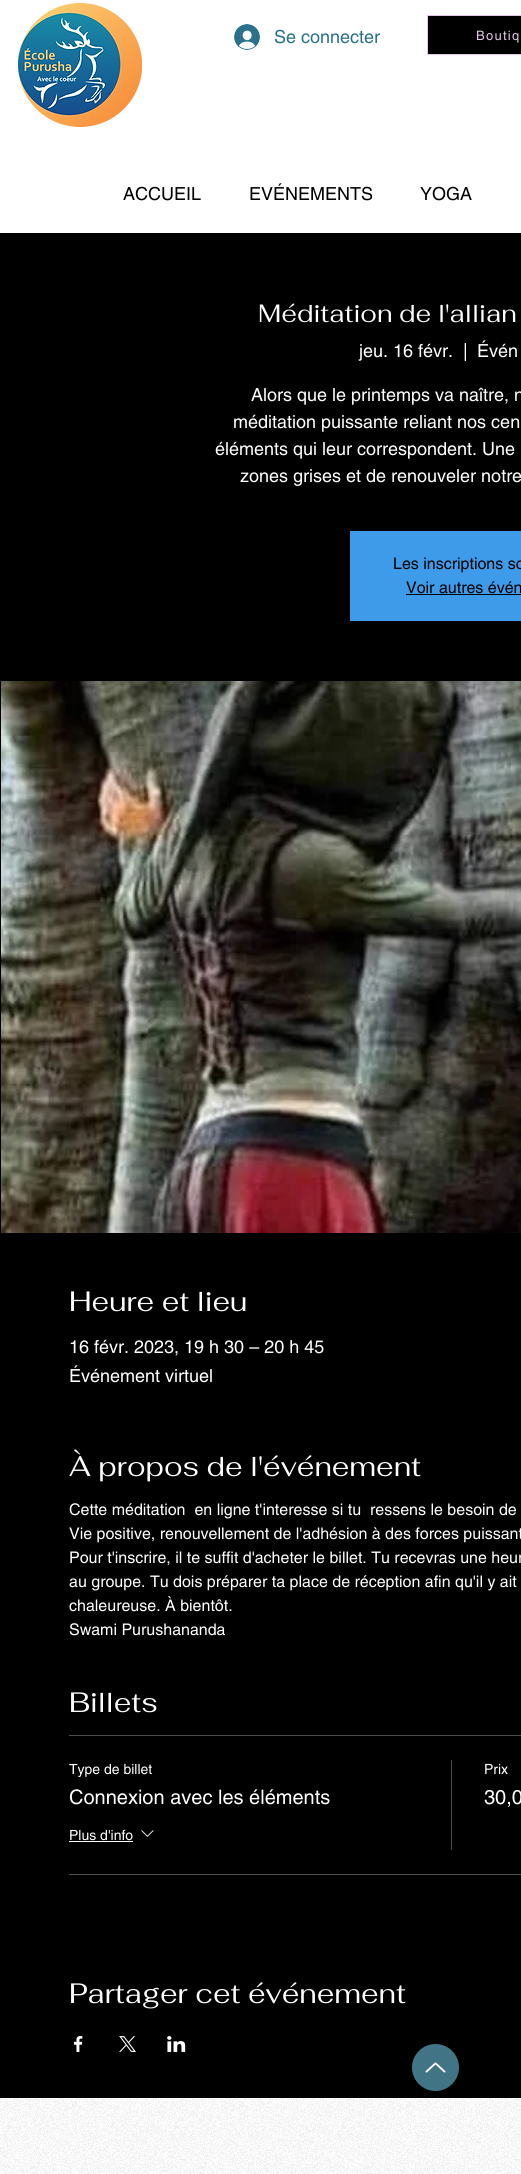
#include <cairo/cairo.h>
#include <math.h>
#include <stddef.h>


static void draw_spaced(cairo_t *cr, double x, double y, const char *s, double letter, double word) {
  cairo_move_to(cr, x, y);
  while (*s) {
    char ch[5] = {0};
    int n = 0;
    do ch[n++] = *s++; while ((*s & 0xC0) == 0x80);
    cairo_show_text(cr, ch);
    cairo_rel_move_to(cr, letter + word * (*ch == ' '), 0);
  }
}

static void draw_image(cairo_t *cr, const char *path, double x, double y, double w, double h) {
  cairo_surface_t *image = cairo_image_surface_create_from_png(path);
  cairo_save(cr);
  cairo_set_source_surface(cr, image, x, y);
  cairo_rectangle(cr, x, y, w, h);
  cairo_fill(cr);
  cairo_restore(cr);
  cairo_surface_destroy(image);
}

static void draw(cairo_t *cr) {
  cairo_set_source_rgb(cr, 0, 0, 0);
  cairo_paint(cr);
  cairo_set_source_rgb(cr, 1, 1, 1);
  cairo_rectangle(cr, 0, 0, 521, 233);
  cairo_fill(cr);
  draw_image(cr, "images/1.png", 18, 3, 124, 124);
  draw_image(cr, "images/2.png", 234, 24, 26, 26);
  cairo_set_source_rgb(cr, 0, 0, 0);
  cairo_rectangle(cr, 427.5, 15.5, 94, 39);
  cairo_fill_preserve(cr);
  cairo_set_source_rgb(cr, 230 / 255.0, 199 / 255.0, 235 / 255.0);
  cairo_set_line_width(cr, 1);
  cairo_stroke(cr);
  cairo_set_source_rgb(cr, 61 / 255.0, 155 / 255.0, 233 / 255.0);
  cairo_rectangle(cr, 350, 531, 171, 90);
  cairo_fill(cr);
  cairo_set_source_rgb(cr, 0, 0, 0);
  cairo_rectangle(cr, 406, 594, 115, 1);
  cairo_fill(cr);
  draw_image(cr, "images/3.png", 1, 681, 520, 552);
  cairo_set_source_rgb(cr, 77 / 255.0, 77 / 255.0, 77 / 255.0);
  cairo_rectangle(cr, 69, 1735, 452, 1);
  cairo_fill(cr);
  cairo_rectangle(cr, 69, 1874, 452, 1);
  cairo_fill(cr);
  cairo_set_source_rgb(cr, 1, 1, 1);
  cairo_rectangle(cr, 69, 1841, 64, 1);
  cairo_fill(cr);
  draw_image(cr, "images/4.png", 141, 1830, 13, 7);
  cairo_set_source_rgb(cr, 77 / 255.0, 77 / 255.0, 77 / 255.0);
  cairo_rectangle(cr, 451, 1760, 1, 90);
  cairo_fill(cr);
  draw_image(cr, "images/5.png", 74, 2036, 9, 16);
  draw_image(cr, "images/6.png", 119, 2036, 17, 16);
  draw_image(cr, "images/7.png", 167, 2036, 19, 16);
  cairo_set_source_rgb(cr, 65 / 255.0, 117 / 255.0, 134 / 255.0);
  cairo_arc(cr, 435.5, 2067.5, 23.5, 0, 2 * M_PI);
  cairo_fill(cr);
  draw_image(cr, "images/8.png", 425, 2062, 21, 11);
  cairo_set_source_rgb(cr, 1, 1, 1);
  cairo_rectangle(cr, 0, 2098, 521, 76);
  cairo_fill(cr);
  draw_image(cr, "images/9.png", 0, 2098, 521, 76);
  cairo_select_font_face(cr, "helvetica", CAIRO_FONT_SLANT_NORMAL, CAIRO_FONT_WEIGHT_NORMAL);
  cairo_set_font_size(cr, 18);
  cairo_set_source_rgb(cr, 42 / 255.0, 113 / 255.0, 138 / 255.0);
  cairo_move_to(cr, 274, 43);
  cairo_show_text(cr, "Se connecter");
  cairo_set_font_size(cr, 13);
  cairo_set_source_rgb(cr, 230 / 255.0, 199 / 255.0, 235 / 255.0);
  draw_spaced(cr, 476, 40, "Boutiq", 1.25, 0);
  cairo_set_font_size(cr, 18);
  cairo_set_source_rgb(cr, 0, 0, 0);
  cairo_move_to(cr, 123, 200);
  cairo_show_text(cr, "ACCUEIL");
  cairo_move_to(cr, 249, 200);
  cairo_show_text(cr, "EVÉNEMENTS");
  cairo_move_to(cr, 420, 200);
  cairo_show_text(cr, "YOGA");
  cairo_select_font_face(cr, "Fahkwang", CAIRO_FONT_SLANT_NORMAL, CAIRO_FONT_WEIGHT_NORMAL);
  cairo_set_font_size(cr, 25);
  cairo_set_source_rgb(cr, 1, 1, 1);
  cairo_move_to(cr, 258, 322);
  cairo_show_text(cr, "Méditation de l'allian");
  cairo_select_font_face(cr, "helvetica", CAIRO_FONT_SLANT_NORMAL, CAIRO_FONT_WEIGHT_NORMAL);
  cairo_set_font_size(cr, 18);
  cairo_move_to(cr, 359, 357);
  cairo_show_text(cr, "jeu. 16 févr.");
  cairo_move_to(cr, 463, 357);
  cairo_show_text(cr, "|");
  cairo_move_to(cr, 477, 357);
  cairo_show_text(cr, "Évén");
  cairo_move_to(cr, 251, 401);
  cairo_show_text(cr, "Alors que le printemps va naître, n");
  cairo_move_to(cr, 233, 428);
  cairo_show_text(cr, "méditation puissante reliant nos cen");
  cairo_move_to(cr, 215, 455);
  cairo_show_text(cr, "éléments qui leur correspondent. Une");
  cairo_move_to(cr, 240, 482);
  cairo_show_text(cr, "zones grises et de renouveler notre");
  cairo_set_font_size(cr, 16);
  cairo_set_source_rgb(cr, 0, 0, 0);
  cairo_move_to(cr, 393, 569);
  cairo_show_text(cr, "Les inscriptions so");
  cairo_move_to(cr, 406, 593);
  cairo_show_text(cr, "Voir autres évén");
  cairo_select_font_face(cr, "Fahkwang", CAIRO_FONT_SLANT_NORMAL, CAIRO_FONT_WEIGHT_NORMAL);
  cairo_set_font_size(cr, 28);
  cairo_set_source_rgb(cr, 1, 1, 1);
  cairo_move_to(cr, 69, 1311);
  cairo_show_text(cr, "Heure et lieu");
  cairo_select_font_face(cr, "helvetica", CAIRO_FONT_SLANT_NORMAL, CAIRO_FONT_WEIGHT_NORMAL);
  cairo_set_font_size(cr, 18);
  cairo_move_to(cr, 69, 1353);
  cairo_show_text(cr, "16 févr. 2023, 19 h 30 – 20 h 45");
  cairo_move_to(cr, 69, 1382);
  cairo_show_text(cr, "Événement virtuel");
  cairo_select_font_face(cr, "Fahkwang", CAIRO_FONT_SLANT_NORMAL, CAIRO_FONT_WEIGHT_NORMAL);
  cairo_set_font_size(cr, 28);
  cairo_move_to(cr, 69, 1476);
  cairo_show_text(cr, "À propos de l'événement");
  cairo_select_font_face(cr, "helvetica", CAIRO_FONT_SLANT_NORMAL, CAIRO_FONT_WEIGHT_NORMAL);
  cairo_set_font_size(cr, 16);
  cairo_move_to(cr, 69, 1515);
  cairo_show_text(cr, "Cette méditation  en ligne t'interesse si tu  ressens le besoin de");
  cairo_move_to(cr, 69, 1539);
  cairo_show_text(cr, "Vie positive, renouvellement de l'adhésion à des forces puissant");
  cairo_move_to(cr, 69, 1563);
  cairo_show_text(cr, "Pour t'inscrire, il te suffit d'acheter le billet. Tu recevras une heur");
  cairo_move_to(cr, 69, 1587);
  cairo_show_text(cr, "au groupe. Tu dois préparer ta place de réception afin qu'il y ait");
  cairo_move_to(cr, 69, 1611);
  cairo_show_text(cr, "chaleureuse. À bientôt.");
  cairo_move_to(cr, 69, 1635);
  cairo_show_text(cr, "Swami Purushananda");
  cairo_select_font_face(cr, "Fahkwang", CAIRO_FONT_SLANT_NORMAL, CAIRO_FONT_WEIGHT_NORMAL);
  cairo_set_font_size(cr, 28);
  cairo_move_to(cr, 69, 1712);
  cairo_show_text(cr, "Billets");
  cairo_select_font_face(cr, "helvetica", CAIRO_FONT_SLANT_NORMAL, CAIRO_FONT_WEIGHT_NORMAL);
  cairo_set_font_size(cr, 14);
  cairo_move_to(cr, 69, 1774);
  cairo_show_text(cr, "Type de billet");
  cairo_set_font_size(cr, 20);
  cairo_move_to(cr, 69, 1804);
  cairo_show_text(cr, "Connexion avec les éléments");
  cairo_set_font_size(cr, 14);
  cairo_move_to(cr, 69, 1840);
  cairo_show_text(cr, "Plus d'info");
  cairo_move_to(cr, 484, 1774);
  cairo_show_text(cr, "Prix");
  cairo_set_font_size(cr, 20);
  cairo_move_to(cr, 484, 1804);
  cairo_show_text(cr, "30,0");
  cairo_select_font_face(cr, "Fahkwang", CAIRO_FONT_SLANT_NORMAL, CAIRO_FONT_WEIGHT_NORMAL);
  cairo_set_font_size(cr, 28);
  cairo_move_to(cr, 69, 2003);
  cairo_show_text(cr, "Partager cet événement");
}

int main(void) {
  cairo_surface_t *surface = cairo_image_surface_create(CAIRO_FORMAT_RGB24, 521, 2174);
  cairo_t *cr = cairo_create(surface);
  cairo_font_options_t *options = cairo_font_options_create();
  cairo_font_options_set_hint_metrics(options, CAIRO_HINT_METRICS_OFF);
  cairo_font_options_set_hint_style(options, CAIRO_HINT_STYLE_NONE);
  cairo_set_font_options(cr, options);
  cairo_set_miter_limit(cr, 4);
  draw(cr);
  cairo_surface_write_to_png(surface, "out.png");
  cairo_font_options_destroy(options);
  cairo_destroy(cr);
  cairo_surface_destroy(surface);
  return 0;
}
